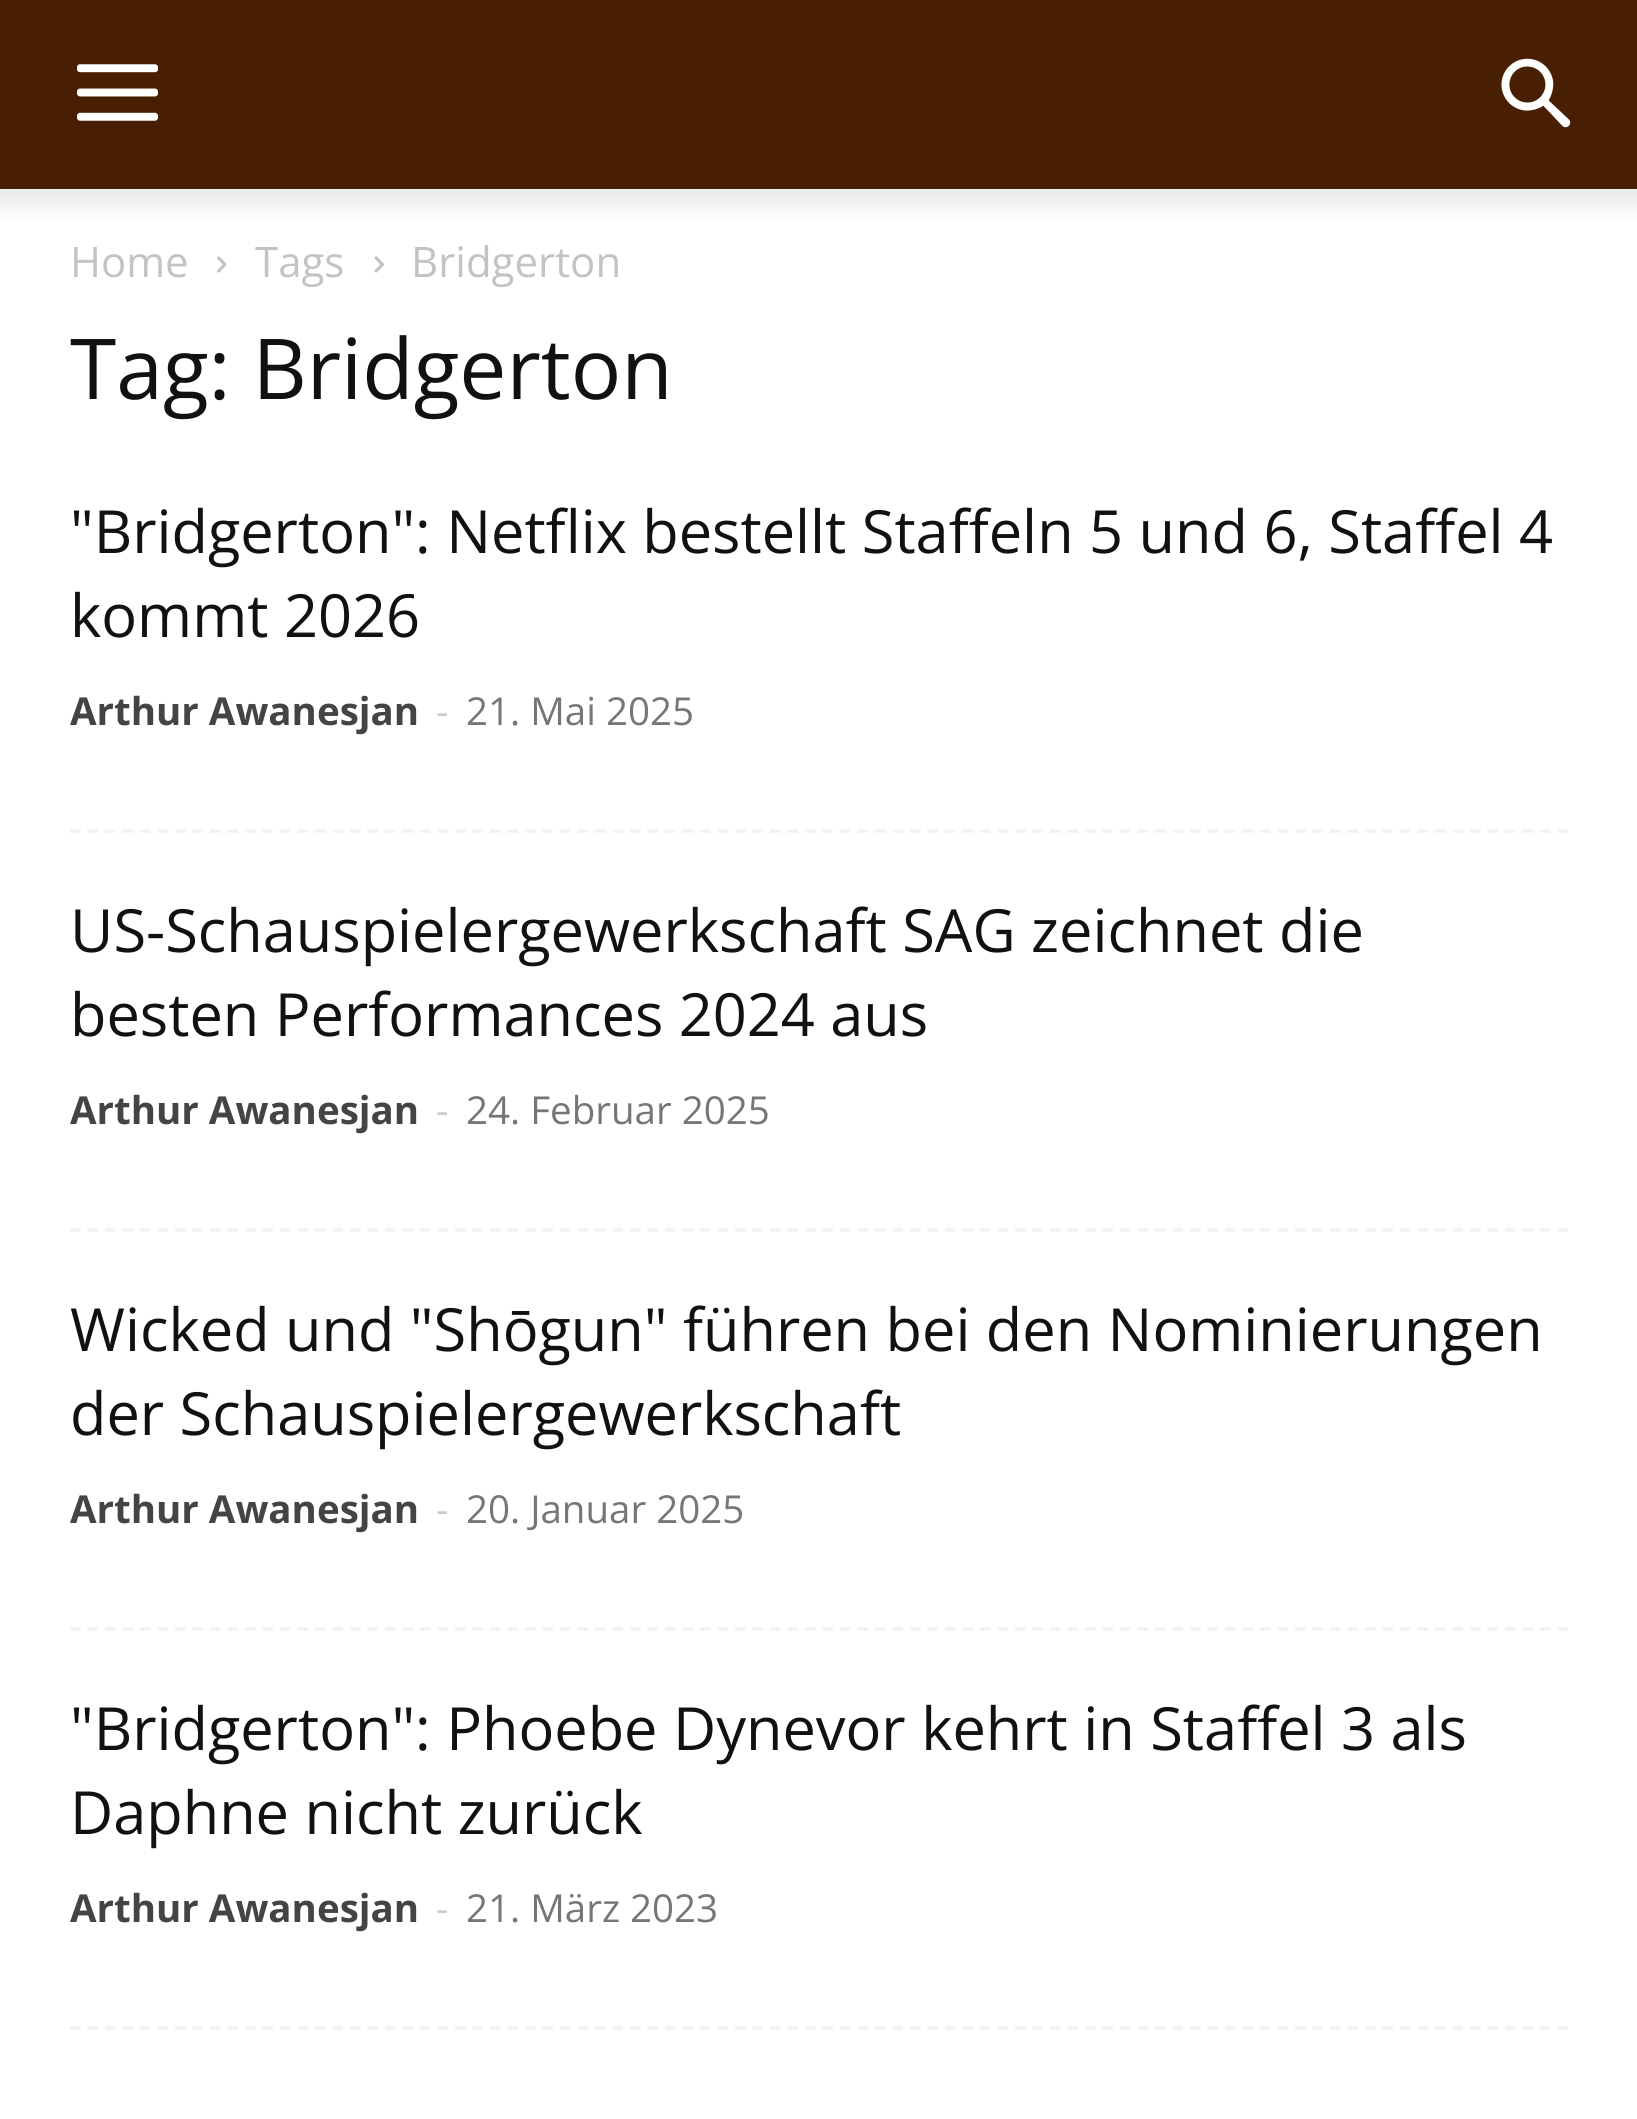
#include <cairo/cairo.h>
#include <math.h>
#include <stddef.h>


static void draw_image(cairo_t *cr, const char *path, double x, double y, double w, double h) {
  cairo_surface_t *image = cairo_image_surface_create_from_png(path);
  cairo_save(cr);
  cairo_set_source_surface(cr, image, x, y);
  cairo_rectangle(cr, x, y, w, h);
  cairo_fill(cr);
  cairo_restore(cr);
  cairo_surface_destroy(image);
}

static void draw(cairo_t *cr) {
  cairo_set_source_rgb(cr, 1, 1, 1);
  cairo_paint(cr);
  cairo_set_source_rgb(cr, 73 / 255.0, 31 / 255.0, 4 / 255.0);
  cairo_rectangle(cr, 0, 0, 1637, 189);
  cairo_fill(cr);
  draw_image(cr, "images/1.png", 77, 64, 82, 57);
  draw_image(cr, "images/2.png", 1501, 58, 70, 70);
  draw_image(cr, "images/3.png", 0, 189, 1637, 30);
  draw_image(cr, "images/4.png", 217, 256, 10, 17);
  draw_image(cr, "images/5.png", 374, 256, 10, 17);
  cairo_new_path(cr);
  cairo_move_to(cr, 70, 831);
  cairo_line_to(cr, 1568, 831);
  cairo_set_source_rgb(cr, 242 / 255.0, 242 / 255.0, 242 / 255.0);
  cairo_set_line_width(cr, 3.5);
  cairo_set_dash(cr, (double[]){10.5, 7}, 2, 0);
  cairo_stroke(cr);
  cairo_new_path(cr);
  cairo_move_to(cr, 70, 1230);
  cairo_line_to(cr, 1568, 1230);
  cairo_stroke(cr);
  cairo_new_path(cr);
  cairo_move_to(cr, 70, 1629);
  cairo_line_to(cr, 1568, 1629);
  cairo_stroke(cr);
  cairo_new_path(cr);
  cairo_move_to(cr, 70, 2028);
  cairo_line_to(cr, 1568, 2028);
  cairo_stroke(cr);
  cairo_select_font_face(cr, "Open Sans", CAIRO_FONT_SLANT_NORMAL, CAIRO_FONT_WEIGHT_NORMAL);
  cairo_set_font_size(cr, 42);
  cairo_set_source_rgb(cr, 195 / 255.0, 195 / 255.0, 195 / 255.0);
  cairo_move_to(cr, 70, 277);
  cairo_show_text(cr, "Home");
  cairo_move_to(cr, 255, 277);
  cairo_show_text(cr, "Tags");
  cairo_move_to(cr, 411, 277);
  cairo_show_text(cr, "Bridgerton");
  cairo_set_font_size(cr, 84);
  cairo_set_source_rgb(cr, 17 / 255.0, 17 / 255.0, 17 / 255.0);
  cairo_move_to(cr, 70, 399);
  cairo_show_text(cr, "Tag: Bridgerton");
  cairo_set_font_size(cr, 59.5);
  cairo_move_to(cr, 70, 553);
  cairo_show_text(cr, "\"Bridgerton\": Netflix bestellt Staffeln 5 und 6, Staffel 4");
  cairo_move_to(cr, 70, 637);
  cairo_show_text(cr, "kommt 2026");
  cairo_select_font_face(cr, "Open Sans", CAIRO_FONT_SLANT_NORMAL, CAIRO_FONT_WEIGHT_BOLD);
  cairo_set_font_size(cr, 38.5);
  cairo_set_source_rgb(cr, 68 / 255.0, 68 / 255.0, 68 / 255.0);
  cairo_move_to(cr, 70, 725);
  cairo_show_text(cr, "Arthur Awanesjan");
  cairo_select_font_face(cr, "Open Sans", CAIRO_FONT_SLANT_NORMAL, CAIRO_FONT_WEIGHT_NORMAL);
  cairo_set_source_rgb(cr, 204 / 255.0, 204 / 255.0, 204 / 255.0);
  cairo_move_to(cr, 436, 725);
  cairo_show_text(cr, "-");
  cairo_set_source_rgb(cr, 118 / 255.0, 118 / 255.0, 118 / 255.0);
  cairo_move_to(cr, 466, 725);
  cairo_show_text(cr, "21. Mai 2025");
  cairo_set_font_size(cr, 59.5);
  cairo_set_source_rgb(cr, 17 / 255.0, 17 / 255.0, 17 / 255.0);
  cairo_move_to(cr, 70, 952);
  cairo_show_text(cr, "US-Schauspielergewerkschaft SAG zeichnet die");
  cairo_move_to(cr, 70, 1036);
  cairo_show_text(cr, "besten Performances 2024 aus");
  cairo_select_font_face(cr, "Open Sans", CAIRO_FONT_SLANT_NORMAL, CAIRO_FONT_WEIGHT_BOLD);
  cairo_set_font_size(cr, 38.5);
  cairo_set_source_rgb(cr, 68 / 255.0, 68 / 255.0, 68 / 255.0);
  cairo_move_to(cr, 70, 1124);
  cairo_show_text(cr, "Arthur Awanesjan");
  cairo_select_font_face(cr, "Open Sans", CAIRO_FONT_SLANT_NORMAL, CAIRO_FONT_WEIGHT_NORMAL);
  cairo_set_source_rgb(cr, 204 / 255.0, 204 / 255.0, 204 / 255.0);
  cairo_move_to(cr, 436, 1124);
  cairo_show_text(cr, "-");
  cairo_set_source_rgb(cr, 118 / 255.0, 118 / 255.0, 118 / 255.0);
  cairo_move_to(cr, 466, 1124);
  cairo_show_text(cr, "24. Februar 2025");
  cairo_set_font_size(cr, 59.5);
  cairo_set_source_rgb(cr, 17 / 255.0, 17 / 255.0, 17 / 255.0);
  cairo_move_to(cr, 70, 1351);
  cairo_show_text(cr, "Wicked und \"Shōgun\" führen bei den Nominierungen");
  cairo_move_to(cr, 70, 1435);
  cairo_show_text(cr, "der Schauspielergewerkschaft");
  cairo_select_font_face(cr, "Open Sans", CAIRO_FONT_SLANT_NORMAL, CAIRO_FONT_WEIGHT_BOLD);
  cairo_set_font_size(cr, 38.5);
  cairo_set_source_rgb(cr, 68 / 255.0, 68 / 255.0, 68 / 255.0);
  cairo_move_to(cr, 70, 1523);
  cairo_show_text(cr, "Arthur Awanesjan");
  cairo_select_font_face(cr, "Open Sans", CAIRO_FONT_SLANT_NORMAL, CAIRO_FONT_WEIGHT_NORMAL);
  cairo_set_source_rgb(cr, 204 / 255.0, 204 / 255.0, 204 / 255.0);
  cairo_move_to(cr, 436, 1523);
  cairo_show_text(cr, "-");
  cairo_set_source_rgb(cr, 118 / 255.0, 118 / 255.0, 118 / 255.0);
  cairo_move_to(cr, 466, 1523);
  cairo_show_text(cr, "20. Januar 2025");
  cairo_set_font_size(cr, 59.5);
  cairo_set_source_rgb(cr, 17 / 255.0, 17 / 255.0, 17 / 255.0);
  cairo_move_to(cr, 70, 1750);
  cairo_show_text(cr, "\"Bridgerton\": Phoebe Dynevor kehrt in Staffel 3 als");
  cairo_move_to(cr, 70, 1834);
  cairo_show_text(cr, "Daphne nicht zurück");
  cairo_select_font_face(cr, "Open Sans", CAIRO_FONT_SLANT_NORMAL, CAIRO_FONT_WEIGHT_BOLD);
  cairo_set_font_size(cr, 38.5);
  cairo_set_source_rgb(cr, 68 / 255.0, 68 / 255.0, 68 / 255.0);
  cairo_move_to(cr, 70, 1922);
  cairo_show_text(cr, "Arthur Awanesjan");
  cairo_select_font_face(cr, "Open Sans", CAIRO_FONT_SLANT_NORMAL, CAIRO_FONT_WEIGHT_NORMAL);
  cairo_set_source_rgb(cr, 204 / 255.0, 204 / 255.0, 204 / 255.0);
  cairo_move_to(cr, 436, 1922);
  cairo_show_text(cr, "-");
  cairo_set_source_rgb(cr, 118 / 255.0, 118 / 255.0, 118 / 255.0);
  cairo_move_to(cr, 466, 1922);
  cairo_show_text(cr, "21. März 2023");
}

int main(void) {
  cairo_surface_t *surface = cairo_image_surface_create(CAIRO_FORMAT_RGB24, 1637, 2119);
  cairo_t *cr = cairo_create(surface);
  cairo_font_options_t *options = cairo_font_options_create();
  cairo_font_options_set_hint_metrics(options, CAIRO_HINT_METRICS_OFF);
  cairo_font_options_set_hint_style(options, CAIRO_HINT_STYLE_NONE);
  cairo_set_font_options(cr, options);
  cairo_set_miter_limit(cr, 4);
  draw(cr);
  cairo_surface_write_to_png(surface, "out.png");
  cairo_font_options_destroy(options);
  cairo_destroy(cr);
  cairo_surface_destroy(surface);
  return 0;
}
